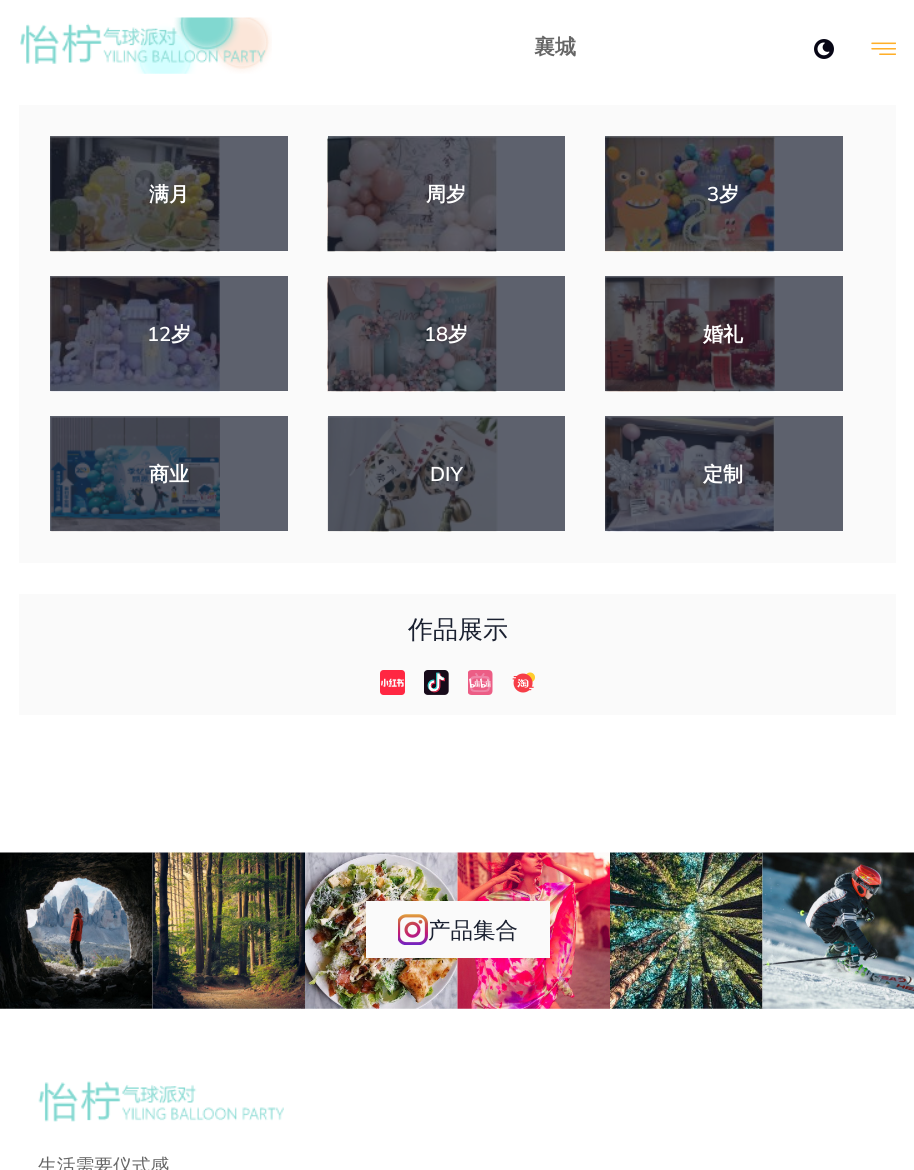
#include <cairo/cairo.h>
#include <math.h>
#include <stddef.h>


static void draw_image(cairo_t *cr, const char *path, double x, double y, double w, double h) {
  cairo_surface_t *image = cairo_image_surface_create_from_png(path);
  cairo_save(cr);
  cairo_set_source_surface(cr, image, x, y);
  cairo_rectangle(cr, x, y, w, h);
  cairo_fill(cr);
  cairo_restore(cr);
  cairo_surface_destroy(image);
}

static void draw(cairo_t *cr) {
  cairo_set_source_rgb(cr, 1, 1, 1);
  cairo_paint(cr);
  draw_image(cr, "images/1.png", 20, 17, 252, 57);
  draw_image(cr, "images/2.png", 814, 39, 20, 20);
  draw_image(cr, "images/3.png", 871, 42, 25, 13);
  cairo_set_source_rgb(cr, 250 / 255.0, 250 / 255.0, 250 / 255.0);
  cairo_rectangle(cr, 19, 105, 877, 458);
  cairo_fill(cr);
  cairo_set_source_rgb(cr, 93 / 255.0, 97 / 255.0, 109 / 255.0);
  cairo_rectangle(cr, 605, 416, 238, 115);
  cairo_fill(cr);
  cairo_rectangle(cr, 328, 416, 237, 115);
  cairo_fill(cr);
  cairo_rectangle(cr, 50, 416, 238, 115);
  cairo_fill(cr);
  cairo_rectangle(cr, 605, 276, 238, 115);
  cairo_fill(cr);
  cairo_rectangle(cr, 328, 276, 237, 115);
  cairo_fill(cr);
  cairo_rectangle(cr, 50, 276, 238, 115);
  cairo_fill(cr);
  cairo_rectangle(cr, 605, 136, 238, 115);
  cairo_fill(cr);
  cairo_rectangle(cr, 328, 136, 237, 115);
  cairo_fill(cr);
  cairo_rectangle(cr, 50, 136, 238, 115);
  cairo_fill(cr);
  draw_image(cr, "images/4.png", 50, 136, 170, 116);
  draw_image(cr, "images/5.png", 327, 136, 171, 116);
  draw_image(cr, "images/6.png", 605, 136, 170, 116);
  draw_image(cr, "images/7.png", 50, 276, 170, 116);
  draw_image(cr, "images/8.png", 327, 276, 171, 116);
  draw_image(cr, "images/9.png", 605, 276, 170, 116);
  draw_image(cr, "images/10.png", 50, 416, 170, 116);
  draw_image(cr, "images/11.png", 327, 416, 171, 116);
  draw_image(cr, "images/12.png", 605, 416, 170, 116);
  cairo_set_source_rgb(cr, 250 / 255.0, 250 / 255.0, 250 / 255.0);
  cairo_rectangle(cr, 19, 594, 877, 121);
  cairo_fill(cr);
  draw_image(cr, "images/13.png", 380, 670, 25, 25);
  draw_image(cr, "images/14.png", 424, 670, 25, 25);
  draw_image(cr, "images/15.png", 468, 670, 25, 25);
  draw_image(cr, "images/16.png", 512, 672, 23, 21);
  draw_image(cr, "images/17.png", 0, 852, 153, 157);
  draw_image(cr, "images/18.png", 152, 852, 153, 157);
  draw_image(cr, "images/19.png", 305, 852, 153, 157);
  draw_image(cr, "images/20.png", 457, 852, 153, 157);
  draw_image(cr, "images/21.png", 610, 852, 153, 157);
  draw_image(cr, "images/22.png", 762, 852, 152, 157);
  cairo_rectangle(cr, 366, 901, 184, 57);
  cairo_fill(cr);
  draw_image(cr, "images/23.png", 398, 914, 30, 31);
  draw_image(cr, "images/24.png", 38, 1081, 246, 41);
  cairo_select_font_face(cr, "WenQuanYi Zen Hei", CAIRO_FONT_SLANT_NORMAL, CAIRO_FONT_WEIGHT_BOLD);
  cairo_set_font_size(cr, 21);
  cairo_set_source_rgb(cr, 102 / 255.0, 102 / 255.0, 102 / 255.0);
  cairo_move_to(cr, 534, 54);
  cairo_show_text(cr, "襄城");
  cairo_set_font_size(cr, 20);
  cairo_set_source_rgb(cr, 1, 1, 1);
  cairo_move_to(cr, 149, 201);
  cairo_show_text(cr, "满月");
  cairo_move_to(cr, 426, 201);
  cairo_show_text(cr, "周岁");
  cairo_select_font_face(cr, "Mulish SemiBold", CAIRO_FONT_SLANT_NORMAL, CAIRO_FONT_WEIGHT_NORMAL);
  cairo_move_to(cr, 707, 201);
  cairo_show_text(cr, "3");
  cairo_select_font_face(cr, "WenQuanYi Zen Hei", CAIRO_FONT_SLANT_NORMAL, CAIRO_FONT_WEIGHT_BOLD);
  cairo_move_to(cr, 719, 201);
  cairo_show_text(cr, "岁");
  cairo_select_font_face(cr, "Mulish SemiBold", CAIRO_FONT_SLANT_NORMAL, CAIRO_FONT_WEIGHT_NORMAL);
  cairo_move_to(cr, 147, 341);
  cairo_show_text(cr, "12");
  cairo_select_font_face(cr, "WenQuanYi Zen Hei", CAIRO_FONT_SLANT_NORMAL, CAIRO_FONT_WEIGHT_BOLD);
  cairo_move_to(cr, 171, 341);
  cairo_show_text(cr, "岁");
  cairo_select_font_face(cr, "Mulish SemiBold", CAIRO_FONT_SLANT_NORMAL, CAIRO_FONT_WEIGHT_NORMAL);
  cairo_move_to(cr, 424, 341);
  cairo_show_text(cr, "18");
  cairo_select_font_face(cr, "WenQuanYi Zen Hei", CAIRO_FONT_SLANT_NORMAL, CAIRO_FONT_WEIGHT_BOLD);
  cairo_move_to(cr, 448, 341);
  cairo_show_text(cr, "岁");
  cairo_move_to(cr, 703, 341);
  cairo_show_text(cr, "婚礼");
  cairo_move_to(cr, 149, 481);
  cairo_show_text(cr, "商业");
  cairo_select_font_face(cr, "Mulish SemiBold", CAIRO_FONT_SLANT_NORMAL, CAIRO_FONT_WEIGHT_NORMAL);
  cairo_move_to(cr, 430, 481);
  cairo_show_text(cr, "DIY");
  cairo_select_font_face(cr, "WenQuanYi Zen Hei", CAIRO_FONT_SLANT_NORMAL, CAIRO_FONT_WEIGHT_BOLD);
  cairo_move_to(cr, 703, 481);
  cairo_show_text(cr, "定制");
  cairo_select_font_face(cr, "WenQuanYi Zen Hei Medium", CAIRO_FONT_SLANT_NORMAL, CAIRO_FONT_WEIGHT_NORMAL);
  cairo_set_font_size(cr, 25);
  cairo_set_source_rgb(cr, 26 / 255.0, 32 / 255.0, 48 / 255.0);
  cairo_move_to(cr, 408, 638);
  cairo_show_text(cr, "作品展示");
  cairo_set_font_size(cr, 22.5);
  cairo_move_to(cr, 428, 938);
  cairo_show_text(cr, "产品集合");
  cairo_set_font_size(cr, 18.75);
  cairo_set_source_rgb(cr, 102 / 255.0, 102 / 255.0, 102 / 255.0);
  cairo_move_to(cr, 38, 1172);
  cairo_show_text(cr, "生活需要仪式感");
}

int main(void) {
  cairo_surface_t *surface = cairo_image_surface_create(CAIRO_FORMAT_RGB24, 914, 1170);
  cairo_t *cr = cairo_create(surface);
  cairo_font_options_t *options = cairo_font_options_create();
  cairo_font_options_set_hint_metrics(options, CAIRO_HINT_METRICS_OFF);
  cairo_font_options_set_hint_style(options, CAIRO_HINT_STYLE_NONE);
  cairo_set_font_options(cr, options);
  cairo_set_miter_limit(cr, 4);
  draw(cr);
  cairo_surface_write_to_png(surface, "out.png");
  cairo_font_options_destroy(options);
  cairo_destroy(cr);
  cairo_surface_destroy(surface);
  return 0;
}
